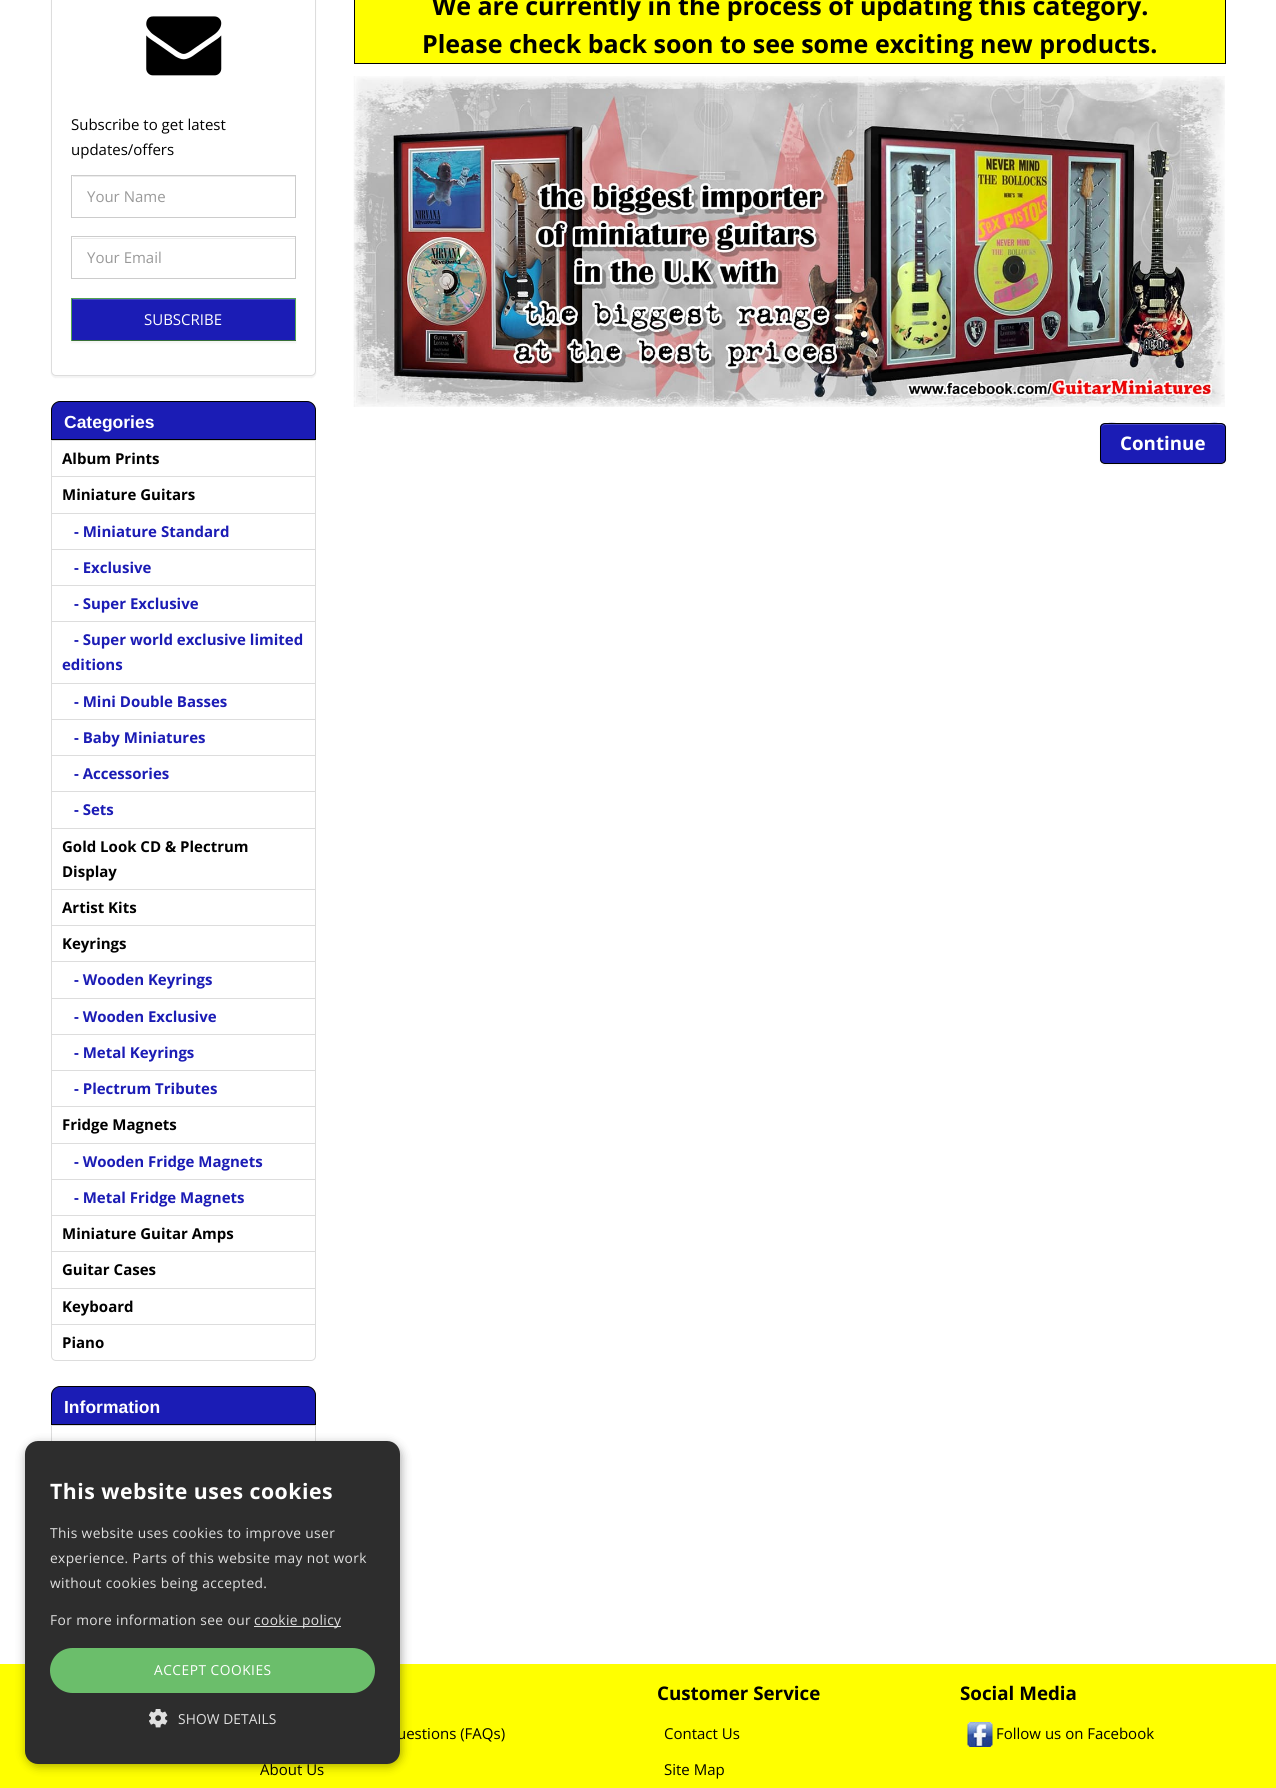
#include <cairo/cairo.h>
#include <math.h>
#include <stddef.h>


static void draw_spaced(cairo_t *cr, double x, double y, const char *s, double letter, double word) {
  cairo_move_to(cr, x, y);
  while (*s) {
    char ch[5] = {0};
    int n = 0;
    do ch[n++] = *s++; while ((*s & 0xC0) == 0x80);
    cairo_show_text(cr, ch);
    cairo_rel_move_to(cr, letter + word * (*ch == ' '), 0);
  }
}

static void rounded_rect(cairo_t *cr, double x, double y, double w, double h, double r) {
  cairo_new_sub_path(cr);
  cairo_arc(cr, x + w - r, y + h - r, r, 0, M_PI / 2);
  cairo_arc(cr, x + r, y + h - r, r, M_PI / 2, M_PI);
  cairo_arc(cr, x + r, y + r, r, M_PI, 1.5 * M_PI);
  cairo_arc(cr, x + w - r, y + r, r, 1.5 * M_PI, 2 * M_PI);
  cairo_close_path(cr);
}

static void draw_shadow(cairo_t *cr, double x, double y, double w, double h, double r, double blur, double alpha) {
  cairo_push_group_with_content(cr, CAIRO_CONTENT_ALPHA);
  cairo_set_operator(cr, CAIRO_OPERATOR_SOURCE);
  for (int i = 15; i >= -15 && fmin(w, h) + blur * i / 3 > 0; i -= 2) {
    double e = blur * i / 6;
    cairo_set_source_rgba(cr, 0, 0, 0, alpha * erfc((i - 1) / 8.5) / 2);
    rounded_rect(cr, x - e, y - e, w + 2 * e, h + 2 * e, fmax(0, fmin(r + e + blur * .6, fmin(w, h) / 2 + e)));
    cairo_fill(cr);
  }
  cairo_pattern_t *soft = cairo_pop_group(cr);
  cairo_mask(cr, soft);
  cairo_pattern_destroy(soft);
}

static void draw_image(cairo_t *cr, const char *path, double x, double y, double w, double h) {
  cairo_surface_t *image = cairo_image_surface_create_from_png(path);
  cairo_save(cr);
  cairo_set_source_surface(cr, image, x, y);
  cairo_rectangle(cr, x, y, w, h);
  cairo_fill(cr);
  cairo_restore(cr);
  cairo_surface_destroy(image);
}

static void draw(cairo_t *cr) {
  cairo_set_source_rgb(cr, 1, 1, 1);
  cairo_paint(cr);
  cairo_set_source_rgb(cr, 0, 0, 0);
  draw_shadow(cr, 51, -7, 265, 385, 5, 0.5, 0.05);
  cairo_set_source_rgb(cr, 1, 1, 1);
  rounded_rect(cr, 51.5, -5.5, 264, 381, 4.5);
  cairo_fill_preserve(cr);
  cairo_set_source_rgb(cr, 221 / 255.0, 221 / 255.0, 221 / 255.0);
  cairo_set_line_width(cr, 1);
  cairo_stroke(cr);
  draw_image(cr, "images/1.png", 146, 16, 76, 60);
  cairo_set_source_rgb(cr, 236 / 255.0, 236 / 255.0, 236 / 255.0);
  cairo_rectangle(cr, 73, 176, 222, 1);
  cairo_fill(cr);
  cairo_rectangle(cr, 71.5, 175.5, 224, 42);
  cairo_set_source_rgb(cr, 204 / 255.0, 204 / 255.0, 204 / 255.0);
  cairo_stroke(cr);
  cairo_set_source_rgb(cr, 236 / 255.0, 236 / 255.0, 236 / 255.0);
  cairo_rectangle(cr, 73, 238, 222, 1);
  cairo_fill(cr);
  cairo_rectangle(cr, 71.5, 236.5, 224, 42);
  cairo_set_source_rgb(cr, 204 / 255.0, 204 / 255.0, 204 / 255.0);
  cairo_stroke(cr);
  cairo_set_source_rgb(cr, 0, 0, 0);
  draw_shadow(cr, 71, 299, 225, 44, 0, 1, 0.05);
  cairo_set_source_rgb(cr, 27 / 255.0, 28 / 255.0, 181 / 255.0);
  cairo_rectangle(cr, 72, 299, 223, 41);
  cairo_fill(cr);
  cairo_set_source_rgb(cr, 73 / 255.0, 73 / 255.0, 196 / 255.0);
  cairo_rectangle(cr, 73, 299, 222, 1);
  cairo_fill(cr);
  cairo_set_source_rgb(cr, 81 / 255.0, 163 / 255.0, 81 / 255.0);
  cairo_rectangle(cr, 71, 298, 225, 1);
  cairo_fill(cr);
  cairo_rectangle(cr, 295, 298, 1, 43);
  cairo_fill(cr);
  cairo_set_source_rgb(cr, 56 / 255.0, 112 / 255.0, 56 / 255.0);
  cairo_rectangle(cr, 71, 340, 225, 1);
  cairo_fill(cr);
  cairo_set_source_rgb(cr, 81 / 255.0, 163 / 255.0, 81 / 255.0);
  cairo_rectangle(cr, 71, 298, 1, 43);
  cairo_fill(cr);
  cairo_set_source_rgb(cr, 27 / 255.0, 28 / 255.0, 181 / 255.0);
  cairo_new_path(cr);
  cairo_move_to(cr, 60, 401.5);
  cairo_line_to(cr, 307, 401.5);
  cairo_curve_to(cr, 311.5, 401.5, 315.5, 405.5, 315.5, 410);
  cairo_line_to(cr, 315.5, 439.5);
  cairo_line_to(cr, 51.5, 439.5);
  cairo_line_to(cr, 51.5, 410);
  cairo_curve_to(cr, 51.5, 405.5, 55.5, 401.5, 60, 401.5);
  cairo_close_path(cr);
  cairo_fill_preserve(cr);
  cairo_set_source_rgb(cr, 0, 0, 0);
  cairo_stroke(cr);
  cairo_rectangle(cr, 51.5, 440.5, 264, 37);
  cairo_set_source_rgb(cr, 221 / 255.0, 221 / 255.0, 221 / 255.0);
  cairo_stroke(cr);
  cairo_set_source_rgb(cr, 1, 1, 1);
  cairo_rectangle(cr, 52, 477, 263, 1);
  cairo_fill(cr);
  cairo_rectangle(cr, 51.5, 476.5, 264, 37);
  cairo_set_source_rgb(cr, 221 / 255.0, 221 / 255.0, 221 / 255.0);
  cairo_stroke(cr);
  cairo_rectangle(cr, 51.5, 513.5, 264, 36);
  cairo_stroke(cr);
  cairo_rectangle(cr, 51.5, 549.5, 264, 36);
  cairo_stroke(cr);
  cairo_rectangle(cr, 51.5, 585.5, 264, 37);
  cairo_stroke(cr);
  cairo_set_source_rgb(cr, 1, 1, 1);
  cairo_rectangle(cr, 52, 622, 263, 1);
  cairo_fill(cr);
  cairo_rectangle(cr, 51.5, 621.5, 264, 62);
  cairo_set_source_rgb(cr, 221 / 255.0, 221 / 255.0, 221 / 255.0);
  cairo_stroke(cr);
  cairo_rectangle(cr, 51.5, 683.5, 264, 36);
  cairo_stroke(cr);
  cairo_rectangle(cr, 51.5, 719.5, 264, 36);
  cairo_stroke(cr);
  cairo_rectangle(cr, 51.5, 755.5, 264, 37);
  cairo_stroke(cr);
  cairo_set_source_rgb(cr, 1, 1, 1);
  cairo_rectangle(cr, 52, 792, 263, 1);
  cairo_fill(cr);
  cairo_rectangle(cr, 51.5, 791.5, 264, 37);
  cairo_set_source_rgb(cr, 221 / 255.0, 221 / 255.0, 221 / 255.0);
  cairo_stroke(cr);
  cairo_rectangle(cr, 51.5, 828.5, 264, 61);
  cairo_stroke(cr);
  cairo_rectangle(cr, 51.5, 889.5, 264, 36);
  cairo_stroke(cr);
  cairo_rectangle(cr, 51.5, 925.5, 264, 37);
  cairo_stroke(cr);
  cairo_set_source_rgb(cr, 1, 1, 1);
  cairo_rectangle(cr, 52, 962, 263, 1);
  cairo_fill(cr);
  cairo_rectangle(cr, 51.5, 961.5, 264, 37);
  cairo_set_source_rgb(cr, 221 / 255.0, 221 / 255.0, 221 / 255.0);
  cairo_stroke(cr);
  cairo_rectangle(cr, 51.5, 998.5, 264, 36);
  cairo_stroke(cr);
  cairo_rectangle(cr, 51.5, 1034.5, 264, 36);
  cairo_stroke(cr);
  cairo_rectangle(cr, 51.5, 1070.5, 264, 37);
  cairo_stroke(cr);
  cairo_set_source_rgb(cr, 1, 1, 1);
  cairo_rectangle(cr, 52, 1107, 263, 1);
  cairo_fill(cr);
  cairo_rectangle(cr, 51.5, 1106.5, 264, 37);
  cairo_set_source_rgb(cr, 221 / 255.0, 221 / 255.0, 221 / 255.0);
  cairo_stroke(cr);
  cairo_rectangle(cr, 51.5, 1143.5, 264, 36);
  cairo_stroke(cr);
  cairo_rectangle(cr, 51.5, 1179.5, 264, 36);
  cairo_stroke(cr);
  cairo_rectangle(cr, 51.5, 1215.5, 264, 37);
  cairo_stroke(cr);
  cairo_set_source_rgb(cr, 1, 1, 1);
  cairo_rectangle(cr, 52, 1252, 263, 1);
  cairo_fill(cr);
  cairo_rectangle(cr, 51.5, 1251.5, 264, 37);
  cairo_set_source_rgb(cr, 221 / 255.0, 221 / 255.0, 221 / 255.0);
  cairo_stroke(cr);
  cairo_rectangle(cr, 51.5, 1288.5, 264, 36);
  cairo_stroke(cr);
  cairo_set_source_rgb(cr, 1, 1, 1);
  cairo_new_path(cr);
  cairo_move_to(cr, 51.5, 1324.5);
  cairo_line_to(cr, 315.5, 1324.5);
  cairo_line_to(cr, 315.5, 1356);
  cairo_curve_to(cr, 315.5, 1358.5, 313.5, 1360.5, 311, 1360.5);
  cairo_line_to(cr, 56, 1360.5);
  cairo_curve_to(cr, 53.5, 1360.5, 51.5, 1358.5, 51.5, 1356);
  cairo_close_path(cr);
  cairo_fill_preserve(cr);
  cairo_set_source_rgb(cr, 221 / 255.0, 221 / 255.0, 221 / 255.0);
  cairo_stroke(cr);
  cairo_set_source_rgb(cr, 27 / 255.0, 28 / 255.0, 181 / 255.0);
  cairo_new_path(cr);
  cairo_move_to(cr, 60, 1386.5);
  cairo_line_to(cr, 307, 1386.5);
  cairo_curve_to(cr, 311.5, 1386.5, 315.5, 1390.5, 315.5, 1395);
  cairo_line_to(cr, 315.5, 1424.5);
  cairo_line_to(cr, 51.5, 1424.5);
  cairo_line_to(cr, 51.5, 1395);
  cairo_curve_to(cr, 51.5, 1390.5, 55.5, 1386.5, 60, 1386.5);
  cairo_close_path(cr);
  cairo_fill_preserve(cr);
  cairo_set_source_rgb(cr, 0, 0, 0);
  cairo_stroke(cr);
  cairo_rectangle(cr, 51.5, 1425.5, 264, 37);
  cairo_set_source_rgb(cr, 221 / 255.0, 221 / 255.0, 221 / 255.0);
  cairo_stroke(cr);
  cairo_set_source_rgb(cr, 1, 1, 0);
  cairo_rectangle(cr, 354.5, -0.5, 871, 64);
  cairo_fill_preserve(cr);
  cairo_set_source_rgb(cr, 0, 0, 0);
  cairo_stroke(cr);
  draw_image(cr, "images/2.png", 353, 76, 872, 331);
  cairo_set_source_rgb(cr, 0, 0, 0);
  draw_shadow(cr, 1100, 424, 126, 41, 5, 1, 0.05);
  cairo_save(cr);
  rounded_rect(cr, 1100, 423, 126, 41, 5);
  cairo_clip(cr);
  cairo_set_source_rgb(cr, 27 / 255.0, 28 / 255.0, 181 / 255.0);
  cairo_rectangle(cr, 1100, 424, 126, 39);
  cairo_fill(cr);
  cairo_restore(cr);
  cairo_set_source_rgb(cr, 73 / 255.0, 73 / 255.0, 196 / 255.0);
  cairo_new_path(cr);
  cairo_move_to(cr, 1105, 425);
  cairo_line_to(cr, 1221, 425);
  cairo_curve_to(cr, 1223, 425, 1225, 427, 1225, 429);
  cairo_curve_to(cr, 1225, 419, 1204, 424, 1202, 424);
  cairo_line_to(cr, 1124, 424);
  cairo_curve_to(cr, 1122, 424, 1101, 419, 1101, 429);
  cairo_curve_to(cr, 1101, 427, 1103, 425, 1105, 425);
  cairo_close_path(cr);
  cairo_fill(cr);
  rounded_rect(cr, 1100.5, 423.5, 125, 40, 4.5);
  cairo_set_source_rgb(cr, 0, 0, 0);
  cairo_stroke(cr);
  cairo_set_source_rgb(cr, 1, 1, 0);
  cairo_rectangle(cr, 0, 1664, 1276, 124);
  cairo_fill(cr);
  cairo_set_source_rgb(cr, 0, 0, 0);
  draw_shadow(cr, 26, 1444, 375, 322, 13, 5, 0.35);
  draw_image(cr, "images/4.png", 967, 1722, 26, 25);
  cairo_select_font_face(cr, "Open Sans", CAIRO_FONT_SLANT_NORMAL, CAIRO_FONT_WEIGHT_NORMAL);
  cairo_set_font_size(cr, 15);
  cairo_set_source_rgb(cr, 0, 0, 0);
  cairo_move_to(cr, 71, 130);
  cairo_show_text(cr, "Subscribe to get latest");
  cairo_move_to(cr, 71, 155);
  cairo_show_text(cr, "updates/offers");
  cairo_set_source_rgb(cr, 153 / 255.0, 153 / 255.0, 153 / 255.0);
  cairo_move_to(cr, 87, 202);
  cairo_show_text(cr, "Your Name");
  cairo_move_to(cr, 87, 263);
  cairo_show_text(cr, "Your Email");
  cairo_set_source_rgb(cr, 1, 1, 1);
  cairo_move_to(cr, 144, 325);
  cairo_show_text(cr, "SUBSCRIBE");
  cairo_select_font_face(cr, "Liberation Sans", CAIRO_FONT_SLANT_NORMAL, CAIRO_FONT_WEIGHT_BOLD);
  cairo_set_font_size(cr, 17.5);
  cairo_move_to(cr, 64, 428);
  cairo_show_text(cr, "Categories");
  cairo_select_font_face(cr, "Open Sans", CAIRO_FONT_SLANT_NORMAL, CAIRO_FONT_WEIGHT_BOLD);
  cairo_set_font_size(cr, 15);
  cairo_set_source_rgb(cr, 0, 0, 0);
  cairo_move_to(cr, 62, 464);
  cairo_show_text(cr, "Album Prints");
  cairo_move_to(cr, 62, 500);
  cairo_show_text(cr, "Miniature Guitars");
  cairo_set_source_rgb(cr, 27 / 255.0, 28 / 255.0, 181 / 255.0);
  cairo_move_to(cr, 74, 537);
  cairo_show_text(cr, "- Miniature Standard");
  cairo_move_to(cr, 74, 573);
  cairo_show_text(cr, "- Exclusive");
  cairo_move_to(cr, 74, 609);
  cairo_show_text(cr, "- Super Exclusive");
  cairo_move_to(cr, 74, 645);
  cairo_show_text(cr, "- Super world exclusive limited");
  cairo_move_to(cr, 62, 670);
  cairo_show_text(cr, "editions");
  cairo_move_to(cr, 74, 707);
  cairo_show_text(cr, "- Mini Double Basses");
  cairo_move_to(cr, 74, 743);
  cairo_show_text(cr, "- Baby Miniatures");
  cairo_move_to(cr, 74, 779);
  cairo_show_text(cr, "- Accessories");
  cairo_move_to(cr, 74, 815);
  cairo_show_text(cr, "- Sets");
  cairo_set_source_rgb(cr, 0, 0, 0);
  cairo_move_to(cr, 62, 852);
  cairo_show_text(cr, "Gold Look CD & Plectrum");
  cairo_move_to(cr, 62, 877);
  cairo_show_text(cr, "Display");
  cairo_move_to(cr, 62, 913);
  cairo_show_text(cr, "Artist Kits");
  cairo_move_to(cr, 62, 949);
  cairo_show_text(cr, "Keyrings");
  cairo_set_source_rgb(cr, 27 / 255.0, 28 / 255.0, 181 / 255.0);
  cairo_move_to(cr, 74, 985);
  cairo_show_text(cr, "- Wooden Keyrings");
  cairo_move_to(cr, 74, 1022);
  cairo_show_text(cr, "- Wooden Exclusive");
  cairo_move_to(cr, 74, 1058);
  cairo_show_text(cr, "- Metal Keyrings");
  cairo_move_to(cr, 74, 1094);
  cairo_show_text(cr, "- Plectrum Tributes");
  cairo_set_source_rgb(cr, 0, 0, 0);
  cairo_move_to(cr, 62, 1130);
  cairo_show_text(cr, "Fridge Magnets");
  cairo_set_source_rgb(cr, 27 / 255.0, 28 / 255.0, 181 / 255.0);
  cairo_move_to(cr, 74, 1167);
  cairo_show_text(cr, "- Wooden Fridge Magnets");
  cairo_move_to(cr, 74, 1203);
  cairo_show_text(cr, "- Metal Fridge Magnets");
  cairo_set_source_rgb(cr, 0, 0, 0);
  cairo_move_to(cr, 62, 1239);
  cairo_show_text(cr, "Miniature Guitar Amps");
  cairo_move_to(cr, 62, 1275);
  cairo_show_text(cr, "Guitar Cases");
  cairo_move_to(cr, 62, 1312);
  cairo_show_text(cr, "Keyboard");
  cairo_move_to(cr, 62, 1348);
  cairo_show_text(cr, "Piano");
  cairo_select_font_face(cr, "Liberation Sans", CAIRO_FONT_SLANT_NORMAL, CAIRO_FONT_WEIGHT_BOLD);
  cairo_set_font_size(cr, 17.5);
  cairo_set_source_rgb(cr, 1, 1, 1);
  cairo_move_to(cr, 64, 1413);
  cairo_show_text(cr, "Information");
  cairo_select_font_face(cr, "Open Sans", CAIRO_FONT_SLANT_NORMAL, CAIRO_FONT_WEIGHT_BOLD);
  cairo_set_font_size(cr, 25);
  cairo_set_source_rgb(cr, 0, 0, 0);
  cairo_move_to(cr, 432, 15);
  cairo_show_text(cr, "We are currently in the process of updating this category.");
  cairo_move_to(cr, 422, 53);
  cairo_show_text(cr, "Please check back soon to see some exciting new products.");
  cairo_set_font_size(cr, 18.75);
  cairo_set_source_rgb(cr, 1, 1, 1);
  cairo_move_to(cr, 1120, 450);
  cairo_show_text(cr, "Continue");
  cairo_set_source_rgb(cr, 0, 0, 0);
  cairo_move_to(cr, 657, 1700);
  cairo_show_text(cr, "Customer Service");
  cairo_select_font_face(cr, "Open Sans", CAIRO_FONT_SLANT_NORMAL, CAIRO_FONT_WEIGHT_NORMAL);
  cairo_set_font_size(cr, 15);
  cairo_move_to(cr, 664, 1739);
  cairo_show_text(cr, "Contact Us");
  cairo_move_to(cr, 664, 1775);
  cairo_show_text(cr, "Site Map");
  cairo_select_font_face(cr, "Open Sans", CAIRO_FONT_SLANT_NORMAL, CAIRO_FONT_WEIGHT_BOLD);
  cairo_set_font_size(cr, 18.75);
  cairo_move_to(cr, 960, 1700);
  cairo_show_text(cr, "Social Media");
  cairo_select_font_face(cr, "Open Sans", CAIRO_FONT_SLANT_NORMAL, CAIRO_FONT_WEIGHT_NORMAL);
  cairo_set_font_size(cr, 15);
  cairo_move_to(cr, 996, 1739);
  cairo_show_text(cr, "Follow us on Facebook");
  cairo_move_to(cr, 397, 1739);
  cairo_show_text(cr, "uestions (FAQs)");
  cairo_move_to(cr, 260, 1775);
  cairo_show_text(cr, "About Us");
  cairo_set_source_rgb(cr, 45 / 255.0, 45 / 255.0, 45 / 255.0);
  rounded_rect(cr, 25, 1441, 375, 323, 13);
  cairo_fill(cr);
  draw_image(cr, "images/3.png", 149, 1709, 19, 19);
  cairo_set_font_size(cr, 13.75);
  cairo_set_source_rgb(cr, 224 / 255.0, 224 / 255.0, 224 / 255.0);
  draw_spaced(cr, 178, 1724, "SHOW DETAILS", 0.1, 0);
  cairo_rectangle(cr, 254, 1626, 87, 1);
  cairo_fill(cr);
  draw_spaced(cr, 254, 1625, "cookie policy", 0.4, 0);
  draw_spaced(cr, 50, 1625, "For more information see our", 0.4, 0);
  draw_spaced(cr, 50, 1588, "without cookies being accepted.", 0.4, 0);
  draw_spaced(cr, 50, 1563, "experience. Parts of this website may not work", 0.4, 0);
  draw_spaced(cr, 50, 1538, "This website uses cookies to improve user", 0.4, 0);
  cairo_set_source_rgb(cr, 107 / 255.0, 190 / 255.0, 107 / 255.0);
  rounded_rect(cr, 50, 1648, 325, 45, 22.5);
  cairo_fill(cr);
  cairo_set_source_rgb(cr, 1, 1, 1);
  draw_spaced(cr, 154, 1675, "ACCEPT COOKIES", 0.5, 0);
  cairo_select_font_face(cr, "Open Sans", CAIRO_FONT_SLANT_NORMAL, CAIRO_FONT_WEIGHT_BOLD);
  cairo_set_font_size(cr, 21.25);
  draw_spaced(cr, 50, 1499, "This website uses cookies", 0.5, 0);
}

int main(void) {
  cairo_surface_t *surface = cairo_image_surface_create(CAIRO_FORMAT_RGB24, 1276, 1788);
  cairo_t *cr = cairo_create(surface);
  cairo_font_options_t *options = cairo_font_options_create();
  cairo_font_options_set_hint_metrics(options, CAIRO_HINT_METRICS_OFF);
  cairo_font_options_set_hint_style(options, CAIRO_HINT_STYLE_NONE);
  cairo_set_font_options(cr, options);
  cairo_set_miter_limit(cr, 4);
  draw(cr);
  cairo_surface_write_to_png(surface, "out.png");
  cairo_font_options_destroy(options);
  cairo_destroy(cr);
  cairo_surface_destroy(surface);
  return 0;
}
